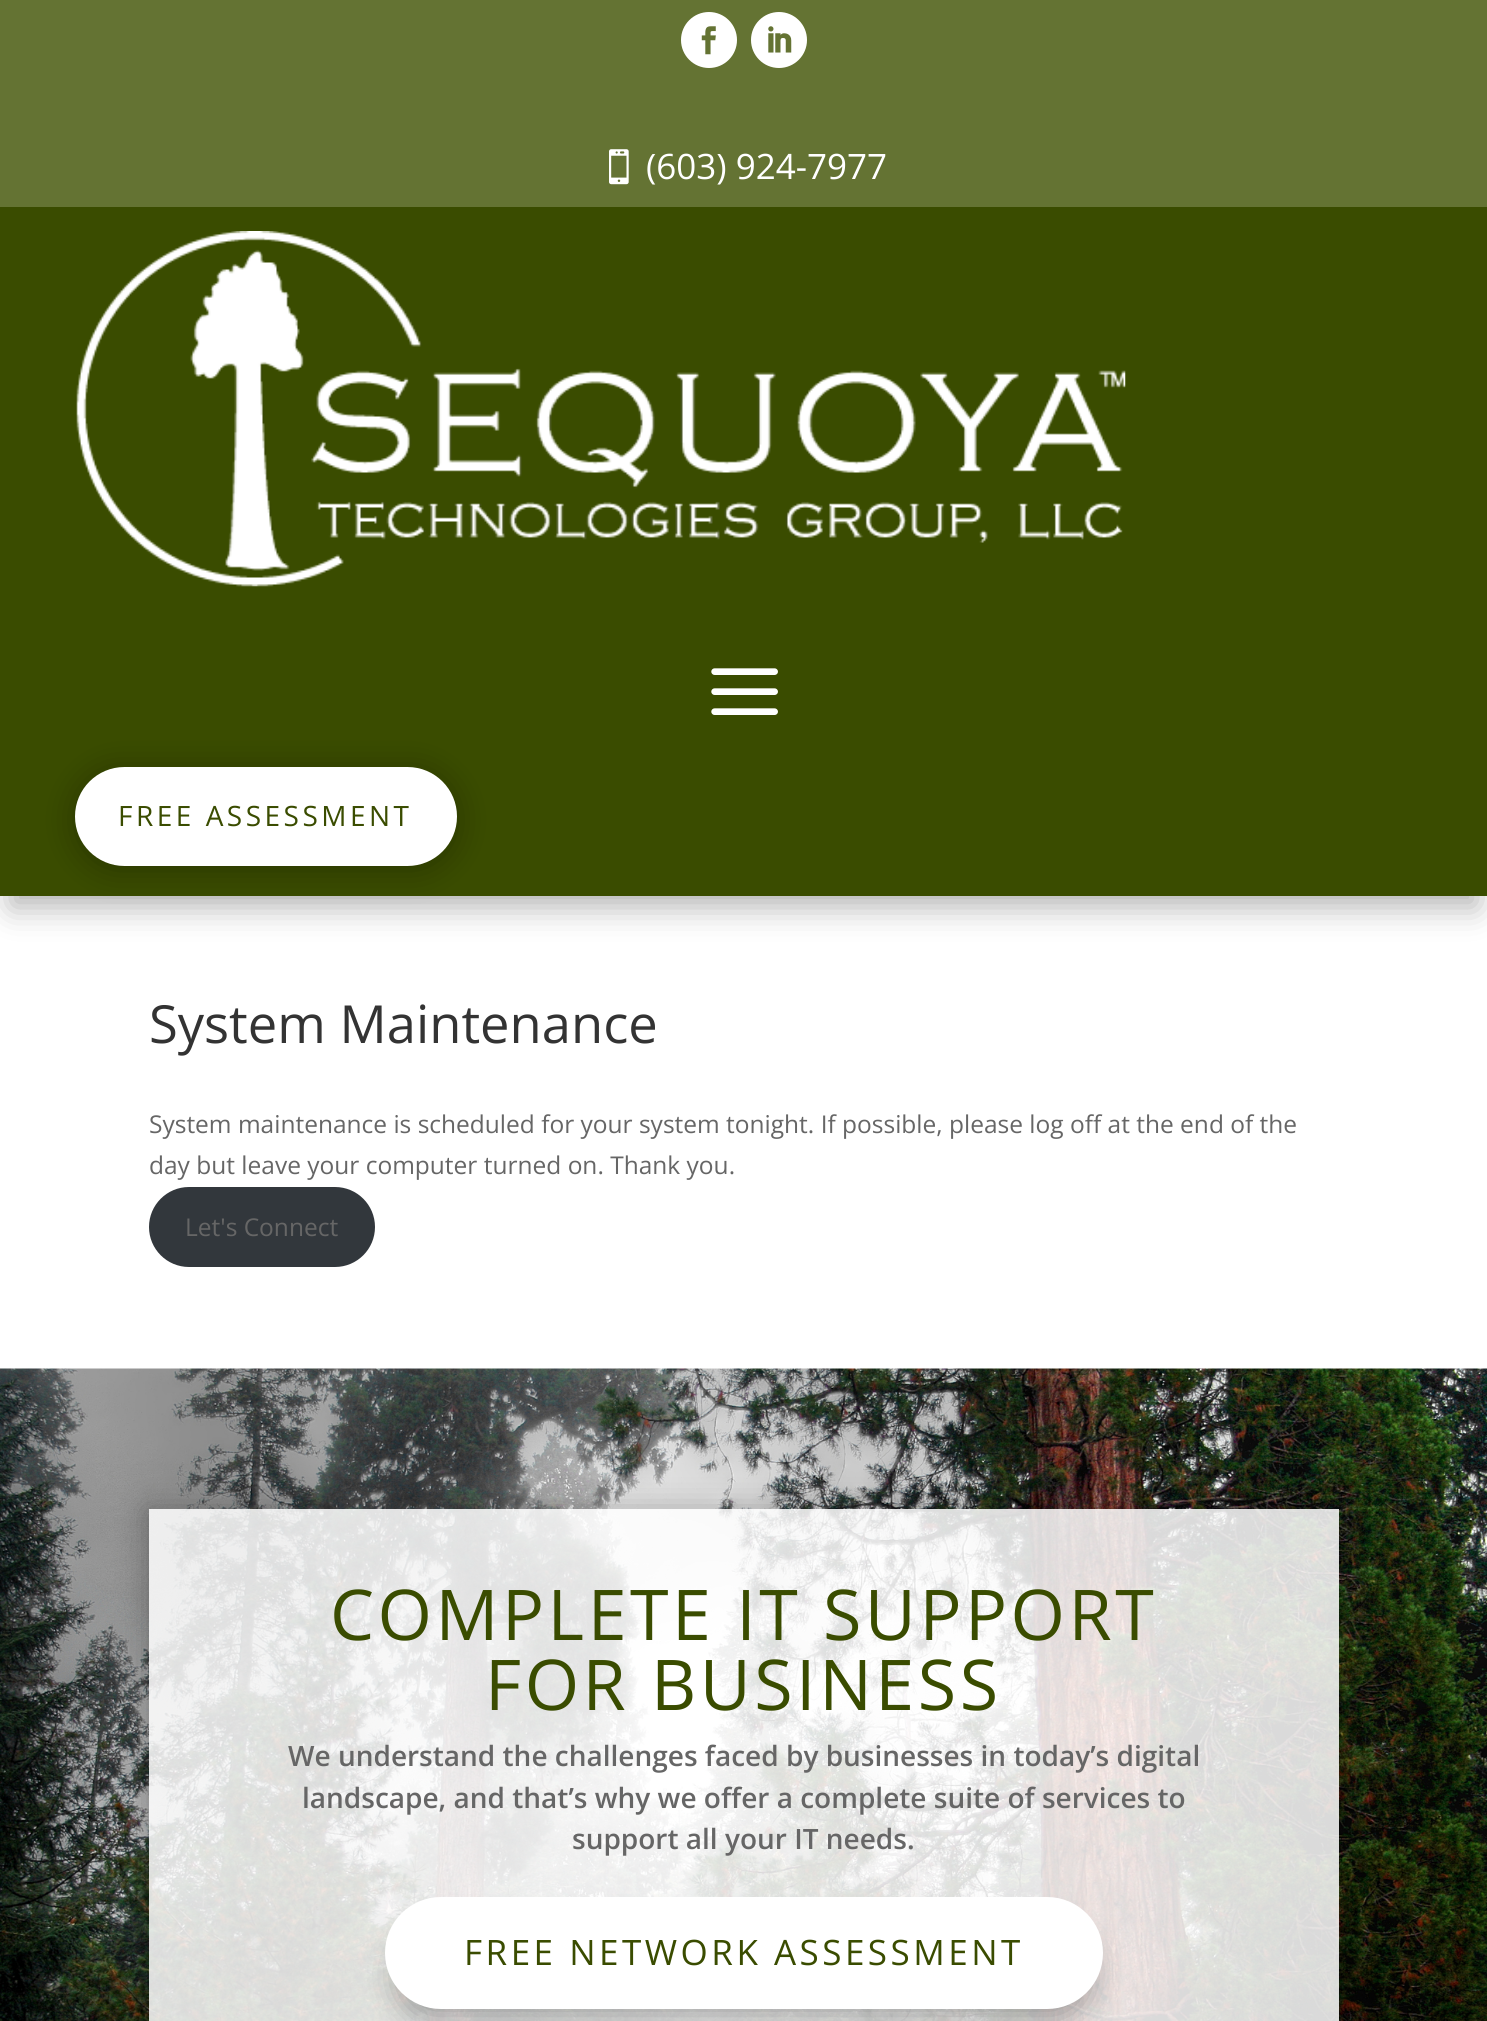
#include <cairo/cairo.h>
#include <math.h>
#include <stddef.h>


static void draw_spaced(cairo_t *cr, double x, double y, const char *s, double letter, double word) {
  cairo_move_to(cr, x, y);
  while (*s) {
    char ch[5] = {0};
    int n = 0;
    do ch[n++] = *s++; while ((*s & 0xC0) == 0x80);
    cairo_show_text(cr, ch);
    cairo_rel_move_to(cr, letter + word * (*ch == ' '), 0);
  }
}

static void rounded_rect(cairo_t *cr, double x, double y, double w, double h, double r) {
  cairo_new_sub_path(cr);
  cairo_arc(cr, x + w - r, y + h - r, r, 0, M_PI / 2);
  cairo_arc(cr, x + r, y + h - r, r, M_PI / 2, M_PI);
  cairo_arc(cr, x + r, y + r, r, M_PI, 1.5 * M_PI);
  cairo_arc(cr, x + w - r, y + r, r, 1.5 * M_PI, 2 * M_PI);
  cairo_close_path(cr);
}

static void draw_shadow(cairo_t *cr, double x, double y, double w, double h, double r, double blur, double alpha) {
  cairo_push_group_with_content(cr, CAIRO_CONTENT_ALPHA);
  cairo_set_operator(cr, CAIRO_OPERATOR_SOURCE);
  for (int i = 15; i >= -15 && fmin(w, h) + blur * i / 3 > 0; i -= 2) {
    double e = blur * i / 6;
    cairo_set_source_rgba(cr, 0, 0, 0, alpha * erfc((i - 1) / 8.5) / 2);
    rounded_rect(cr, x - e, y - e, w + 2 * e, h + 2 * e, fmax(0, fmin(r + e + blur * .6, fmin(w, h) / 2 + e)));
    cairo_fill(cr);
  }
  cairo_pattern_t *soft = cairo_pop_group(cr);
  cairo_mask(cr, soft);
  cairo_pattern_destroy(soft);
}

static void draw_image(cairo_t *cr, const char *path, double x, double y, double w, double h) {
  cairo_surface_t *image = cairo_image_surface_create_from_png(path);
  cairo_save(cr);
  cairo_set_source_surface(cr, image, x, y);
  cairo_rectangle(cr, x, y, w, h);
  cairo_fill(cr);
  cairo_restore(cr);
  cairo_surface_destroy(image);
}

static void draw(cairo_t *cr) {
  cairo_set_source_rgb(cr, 1, 1, 1);
  cairo_paint(cr);
  cairo_set_source_rgb(cr, 100 / 255.0, 115 / 255.0, 51 / 255.0);
  cairo_rectangle(cr, 0, 0, 1487, 207);
  cairo_fill(cr);
  cairo_set_source_rgb(cr, 1, 1, 1);
  cairo_arc(cr, 709, 40, 28, 0, 2 * M_PI);
  cairo_fill(cr);
  draw_image(cr, "images/1.png", 701, 26, 15, 29);
  cairo_arc(cr, 779, 40, 28, 0, 2 * M_PI);
  cairo_fill(cr);
  draw_image(cr, "images/2.png", 768, 26, 24, 27);
  draw_image(cr, "images/3.png", 609, 149, 20, 36);
  cairo_set_source_rgb(cr, 0, 0, 0);
  draw_shadow(cr, 11, 238, 1466, 669, 0, 16, 0.3);
  cairo_set_source_rgb(cr, 58 / 255.0, 76 / 255.0, 0);
  cairo_rectangle(cr, 0, 207, 1487, 689);
  cairo_fill(cr);
  draw_image(cr, "images/4.png", 76, 231, 1050, 356);
  draw_image(cr, "images/5.png", 711, 668, 67, 47);
  cairo_set_source_rgb(cr, 0, 0, 0);
  draw_shadow(cr, 75, 770, 382, 100, 50, 16, 0.3);
  cairo_set_source_rgb(cr, 1, 1, 1);
  rounded_rect(cr, 75, 767, 382, 99, 49.5);
  cairo_fill(cr);
  cairo_set_source_rgb(cr, 50 / 255.0, 55 / 255.0, 60 / 255.0);
  rounded_rect(cr, 149, 1187, 226, 80, 40);
  cairo_fill(cr);
  draw_image(cr, "images/6.png", 0, 1368, 1487, 653);
  cairo_save(cr);
  cairo_set_fill_rule(cr, CAIRO_FILL_RULE_EVEN_ODD);
  cairo_new_path(cr);
  cairo_move_to(cr, 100, 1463);
  cairo_line_to(cr, 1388, 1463);
  cairo_line_to(cr, 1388, 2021);
  cairo_line_to(cr, 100, 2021);
  cairo_close_path(cr);
  cairo_move_to(cr, 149, 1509);
  cairo_line_to(cr, 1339, 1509);
  cairo_line_to(cr, 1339, 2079);
  cairo_line_to(cr, 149, 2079);
  cairo_close_path(cr);
  cairo_clip(cr);
  cairo_set_source_rgb(cr, 0, 0, 0);
  draw_shadow(cr, 149, 1512, 1190, 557, 0, 16, 0.3);
  cairo_restore(cr);
  cairo_set_source_rgba(cr, 1, 1, 1, 0.85);
  cairo_rectangle(cr, 149, 1509, 1190, 512);
  cairo_fill(cr);
  cairo_set_source_rgb(cr, 0, 0, 0);
  draw_shadow(cr, 396, 1929, 696, 91, 45.5, 16, 0.3);
  cairo_set_source_rgb(cr, 1, 1, 1);
  rounded_rect(cr, 385, 1897, 718, 112, 56);
  cairo_fill(cr);
  cairo_select_font_face(cr, "Open Sans", CAIRO_FONT_SLANT_NORMAL, CAIRO_FONT_WEIGHT_NORMAL);
  cairo_set_font_size(cr, 35);
  cairo_move_to(cr, 646, 179);
  cairo_show_text(cr, "(603) 924-7977");
  cairo_set_font_size(cr, 28);
  cairo_set_source_rgb(cr, 58 / 255.0, 76 / 255.0, 0);
  draw_spaced(cr, 118, 826, "FREE ASSESSMENT", 3.5, 0);
  cairo_set_font_size(cr, 52.5);
  cairo_set_source_rgb(cr, 51 / 255.0, 51 / 255.0, 51 / 255.0);
  cairo_move_to(cr, 149, 1043);
  cairo_show_text(cr, "System Maintenance");
  cairo_set_font_size(cr, 24.5);
  cairo_set_source_rgb(cr, 102 / 255.0, 102 / 255.0, 102 / 255.0);
  cairo_move_to(cr, 149, 1133);
  cairo_show_text(cr, "System maintenance is scheduled for your system tonight. If possible, please log off at the end of the");
  cairo_move_to(cr, 149, 1174);
  cairo_show_text(cr, "day but leave your computer turned on. Thank you.");
  cairo_move_to(cr, 185, 1236);
  cairo_show_text(cr, "Let's Connect");
  cairo_set_font_size(cr, 70);
  cairo_set_source_rgb(cr, 58 / 255.0, 76 / 255.0, 0);
  draw_spaced(cr, 330, 1640, "COMPLETE IT SUPPORT", 3.5, 0);
  draw_spaced(cr, 485, 1710, "FOR BUSINESS", 3.5, 0);
  cairo_select_font_face(cr, "Open Sans SemiBold", CAIRO_FONT_SLANT_NORMAL, CAIRO_FONT_WEIGHT_NORMAL);
  cairo_set_font_size(cr, 28);
  cairo_set_source_rgb(cr, 102 / 255.0, 102 / 255.0, 102 / 255.0);
  cairo_move_to(cr, 288, 1766);
  cairo_show_text(cr, "We understand the challenges faced by businesses in today’s digital");
  cairo_move_to(cr, 302, 1808);
  cairo_show_text(cr, "landscape, and that’s why we offer a complete suite of services to");
  cairo_move_to(cr, 572, 1849);
  cairo_show_text(cr, "support all your IT needs.");
  cairo_select_font_face(cr, "Open Sans", CAIRO_FONT_SLANT_NORMAL, CAIRO_FONT_WEIGHT_NORMAL);
  cairo_set_font_size(cr, 35);
  cairo_set_source_rgb(cr, 58 / 255.0, 76 / 255.0, 0);
  draw_spaced(cr, 464, 1965, "FREE NETWORK ASSESSMENT", 3.5, 0);
}

int main(void) {
  cairo_surface_t *surface = cairo_image_surface_create(CAIRO_FORMAT_RGB24, 1487, 2021);
  cairo_t *cr = cairo_create(surface);
  cairo_font_options_t *options = cairo_font_options_create();
  cairo_font_options_set_hint_metrics(options, CAIRO_HINT_METRICS_OFF);
  cairo_font_options_set_hint_style(options, CAIRO_HINT_STYLE_NONE);
  cairo_set_font_options(cr, options);
  cairo_set_miter_limit(cr, 4);
  draw(cr);
  cairo_surface_write_to_png(surface, "out.png");
  cairo_font_options_destroy(options);
  cairo_destroy(cr);
  cairo_surface_destroy(surface);
  return 0;
}
